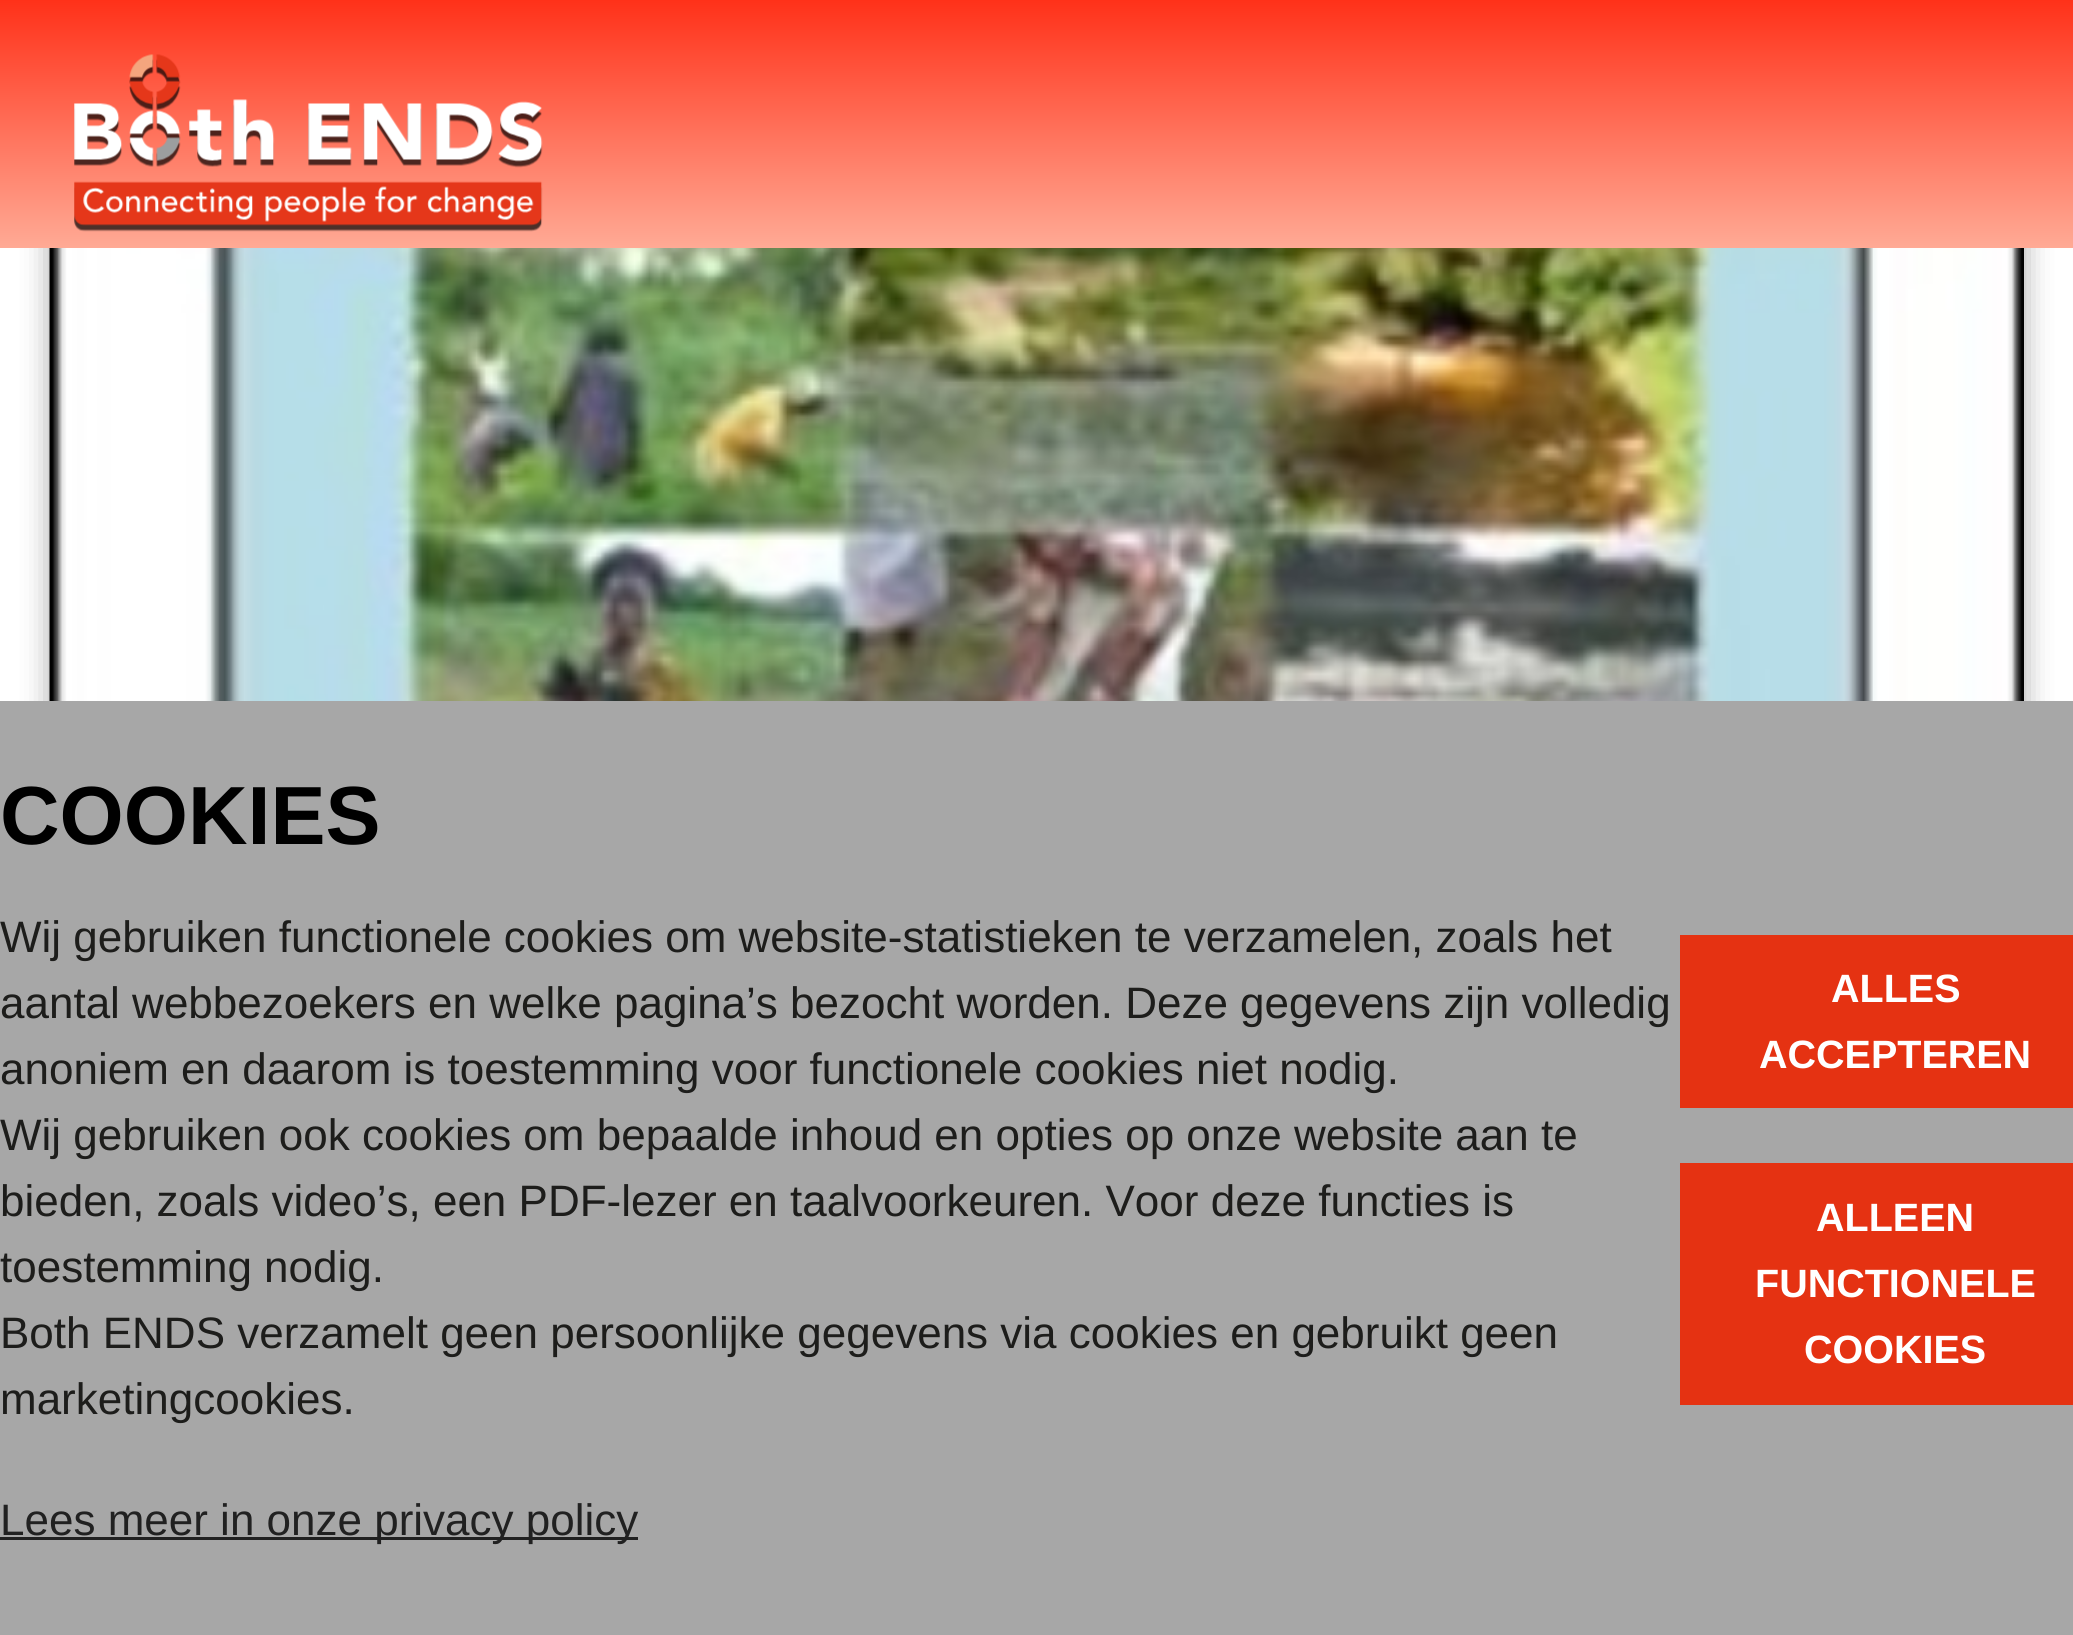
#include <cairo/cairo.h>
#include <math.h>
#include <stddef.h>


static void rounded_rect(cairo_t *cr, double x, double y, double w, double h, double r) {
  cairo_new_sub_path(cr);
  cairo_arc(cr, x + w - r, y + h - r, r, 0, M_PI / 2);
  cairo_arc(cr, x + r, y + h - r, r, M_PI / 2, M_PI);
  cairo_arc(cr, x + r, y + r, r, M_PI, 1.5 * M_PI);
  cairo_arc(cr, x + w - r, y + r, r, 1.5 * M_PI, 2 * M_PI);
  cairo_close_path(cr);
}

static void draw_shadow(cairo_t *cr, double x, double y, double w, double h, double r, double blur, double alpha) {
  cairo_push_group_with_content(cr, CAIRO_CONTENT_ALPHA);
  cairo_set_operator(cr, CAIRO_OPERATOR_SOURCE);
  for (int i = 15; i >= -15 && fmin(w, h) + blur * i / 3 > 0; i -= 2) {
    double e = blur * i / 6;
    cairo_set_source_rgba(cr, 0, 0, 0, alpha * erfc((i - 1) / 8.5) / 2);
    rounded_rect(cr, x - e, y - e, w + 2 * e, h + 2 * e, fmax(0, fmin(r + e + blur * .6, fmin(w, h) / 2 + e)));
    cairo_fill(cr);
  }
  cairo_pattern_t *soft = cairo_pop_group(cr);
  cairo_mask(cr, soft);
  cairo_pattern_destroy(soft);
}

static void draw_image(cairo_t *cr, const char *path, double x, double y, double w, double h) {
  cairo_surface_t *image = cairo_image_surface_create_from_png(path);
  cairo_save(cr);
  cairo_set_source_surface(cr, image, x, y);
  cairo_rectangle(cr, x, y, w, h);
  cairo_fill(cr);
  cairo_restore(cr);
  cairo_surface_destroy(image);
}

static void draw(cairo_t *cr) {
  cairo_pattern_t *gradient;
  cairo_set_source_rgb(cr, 1, 1, 1);
  cairo_paint(cr);
  cairo_set_source_rgb(cr, 0, 0, 0);
  draw_shadow(cr, 50, 74, 1974, 1263, 0, 14, 0.35);
  gradient = cairo_pattern_create_linear(1037, 0, 1037, 248);
  cairo_pattern_add_color_stop_rgba(gradient, 0, 1, 49 / 255.0, 25 / 255.0, 1);
  cairo_pattern_add_color_stop_rgba(gradient, 1, 1, 170 / 255.0, 149 / 255.0, 1);
  cairo_set_source(cr, gradient);
  cairo_pattern_destroy(gradient);
  cairo_rectangle(cr, 0, 0, 2073, 248);
  cairo_fill(cr);
  draw_image(cr, "images/1.png", 74, 54, 469, 178);
  draw_image(cr, "images/2.png", 49, 248, 1975, 453);
  cairo_set_source_rgb(cr, 167 / 255.0, 167 / 255.0, 167 / 255.0);
  cairo_rectangle(cr, 0, 701, 2073, 934);
  cairo_fill(cr);
  cairo_set_source_rgb(cr, 33 / 255.0, 33 / 255.0, 33 / 255.0);
  cairo_rectangle(cr, 0, 1537, 638, 3);
  cairo_fill(cr);
  cairo_set_source_rgb(cr, 229 / 255.0, 50 / 255.0, 18 / 255.0);
  cairo_rectangle(cr, 1680, 935, 393, 173);
  cairo_fill(cr);
  cairo_rectangle(cr, 1680, 1163, 393, 242);
  cairo_fill(cr);
  cairo_select_font_face(cr, "Liberation Sans", CAIRO_FONT_SLANT_NORMAL, CAIRO_FONT_WEIGHT_BOLD);
  cairo_set_font_size(cr, 82.5);
  cairo_set_source_rgb(cr, 0, 0, 0);
  cairo_move_to(cr, 0, 844);
  cairo_show_text(cr, "COOKIES");
  cairo_select_font_face(cr, "Liberation Sans", CAIRO_FONT_SLANT_NORMAL, CAIRO_FONT_WEIGHT_NORMAL);
  cairo_set_font_size(cr, 44);
  cairo_set_source_rgb(cr, 29 / 255.0, 29 / 255.0, 27 / 255.0);
  cairo_move_to(cr, 0, 952);
  cairo_show_text(cr, "Wij gebruiken functionele cookies om website-statistieken te verzamelen, zoals het");
  cairo_move_to(cr, 0, 1018);
  cairo_show_text(cr, "aantal webbezoekers en welke pagina’s bezocht worden. Deze gegevens zijn volledig");
  cairo_move_to(cr, 0, 1084);
  cairo_show_text(cr, "anoniem en daarom is toestemming voor functionele cookies niet nodig.");
  cairo_move_to(cr, 0, 1150);
  cairo_show_text(cr, "Wij gebruiken ook cookies om bepaalde inhoud en opties op onze website aan te");
  cairo_move_to(cr, 0, 1216);
  cairo_show_text(cr, "bieden, zoals video’s, een PDF-lezer en taalvoorkeuren. Voor deze functies is");
  cairo_move_to(cr, 0, 1282);
  cairo_show_text(cr, "toestemming nodig.");
  cairo_move_to(cr, 0, 1348);
  cairo_show_text(cr, "Both ENDS verzamelt geen persoonlijke gegevens via cookies en gebruikt geen");
  cairo_move_to(cr, 0, 1414);
  cairo_show_text(cr, "marketingcookies.");
  cairo_set_source_rgb(cr, 33 / 255.0, 33 / 255.0, 33 / 255.0);
  cairo_move_to(cr, 0, 1535);
  cairo_show_text(cr, "Lees meer in onze privacy policy");
  cairo_select_font_face(cr, "Liberation Sans", CAIRO_FONT_SLANT_NORMAL, CAIRO_FONT_WEIGHT_BOLD);
  cairo_set_font_size(cr, 39.5);
  cairo_set_source_rgb(cr, 1, 1, 1);
  cairo_move_to(cr, 1831, 1002);
  cairo_show_text(cr, "ALLES");
  cairo_move_to(cr, 1759, 1068);
  cairo_show_text(cr, "ACCEPTEREN");
  cairo_move_to(cr, 1816, 1231);
  cairo_show_text(cr, "ALLEEN");
  cairo_move_to(cr, 1755, 1297);
  cairo_show_text(cr, "FUNCTIONELE");
  cairo_move_to(cr, 1804, 1363);
  cairo_show_text(cr, "COOKIES");
}

int main(void) {
  cairo_surface_t *surface = cairo_image_surface_create(CAIRO_FORMAT_RGB24, 2073, 1635);
  cairo_t *cr = cairo_create(surface);
  cairo_font_options_t *options = cairo_font_options_create();
  cairo_font_options_set_hint_metrics(options, CAIRO_HINT_METRICS_OFF);
  cairo_font_options_set_hint_style(options, CAIRO_HINT_STYLE_NONE);
  cairo_set_font_options(cr, options);
  cairo_set_miter_limit(cr, 4);
  draw(cr);
  cairo_surface_write_to_png(surface, "out.png");
  cairo_font_options_destroy(options);
  cairo_destroy(cr);
  cairo_surface_destroy(surface);
  return 0;
}
